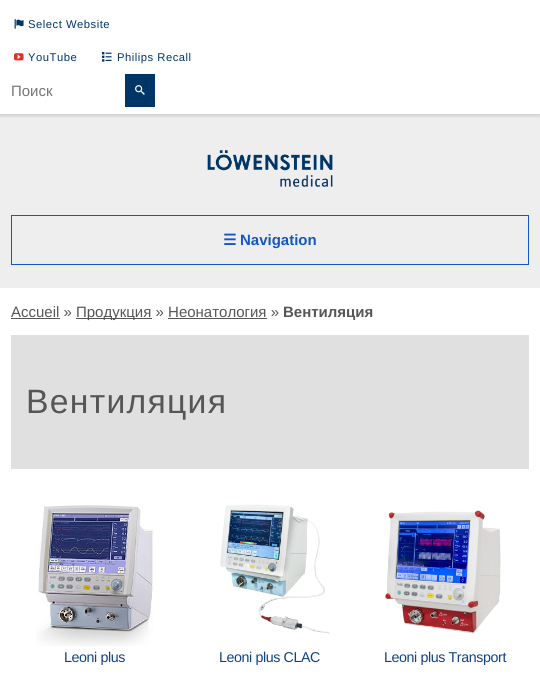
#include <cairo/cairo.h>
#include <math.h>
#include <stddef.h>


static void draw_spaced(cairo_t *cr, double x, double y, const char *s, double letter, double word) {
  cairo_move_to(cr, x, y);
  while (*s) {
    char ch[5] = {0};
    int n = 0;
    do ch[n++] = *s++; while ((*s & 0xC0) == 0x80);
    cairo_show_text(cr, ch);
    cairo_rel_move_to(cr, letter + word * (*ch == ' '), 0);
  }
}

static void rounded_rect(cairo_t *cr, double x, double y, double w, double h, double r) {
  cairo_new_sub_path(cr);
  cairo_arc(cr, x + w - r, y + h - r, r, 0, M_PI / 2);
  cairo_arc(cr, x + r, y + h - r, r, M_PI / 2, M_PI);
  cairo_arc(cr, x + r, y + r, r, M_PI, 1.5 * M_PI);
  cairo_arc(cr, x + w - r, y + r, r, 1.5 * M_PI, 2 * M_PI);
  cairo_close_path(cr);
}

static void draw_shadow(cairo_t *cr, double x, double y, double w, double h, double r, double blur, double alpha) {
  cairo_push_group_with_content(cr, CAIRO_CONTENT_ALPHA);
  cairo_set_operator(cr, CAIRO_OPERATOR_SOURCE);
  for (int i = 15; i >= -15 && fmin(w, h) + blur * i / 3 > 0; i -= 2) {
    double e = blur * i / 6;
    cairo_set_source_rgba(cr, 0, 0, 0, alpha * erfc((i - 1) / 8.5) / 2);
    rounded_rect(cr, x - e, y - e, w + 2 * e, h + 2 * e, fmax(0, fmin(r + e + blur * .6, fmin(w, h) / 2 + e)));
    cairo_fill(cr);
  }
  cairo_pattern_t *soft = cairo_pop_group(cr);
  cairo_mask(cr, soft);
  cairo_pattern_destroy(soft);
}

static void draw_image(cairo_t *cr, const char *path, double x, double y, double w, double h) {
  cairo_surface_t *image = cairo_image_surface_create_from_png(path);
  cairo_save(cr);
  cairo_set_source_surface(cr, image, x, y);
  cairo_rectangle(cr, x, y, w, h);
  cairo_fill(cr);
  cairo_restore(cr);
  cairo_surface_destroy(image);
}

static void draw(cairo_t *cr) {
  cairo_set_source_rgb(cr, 1, 1, 1);
  cairo_paint(cr);
  cairo_set_source_rgb(cr, 238 / 255.0, 238 / 255.0, 238 / 255.0);
  cairo_rectangle(cr, 0, 114, 540, 174);
  cairo_fill(cr);
  cairo_save(cr);
  cairo_rectangle(cr, 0, 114, 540, 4);
  cairo_clip(cr);
  cairo_set_source_rgb(cr, 0, 0, 0);
  draw_shadow(cr, 0, 2, 540, 114, 0, 2, 0.15);
  cairo_restore(cr);
  draw_image(cr, "images/1.png", 14, 19, 10, 10);
  draw_image(cr, "images/2.png", 14, 53, 10, 8);
  draw_image(cr, "images/3.png", 102, 52, 10, 10);
  cairo_set_source_rgb(cr, 0, 53 / 255.0, 104 / 255.0);
  cairo_rectangle(cr, 125, 74, 30, 33);
  cairo_fill(cr);
  draw_image(cr, "images/4.png", 135, 85, 10, 10);
  draw_image(cr, "images/5.png", 207, 150, 126, 37);
  cairo_rectangle(cr, 11.5, 215.5, 517, 49);
  cairo_set_source_rgb(cr, 20 / 255.0, 87 / 255.0, 195 / 255.0);
  cairo_set_line_width(cr, 1);
  cairo_stroke(cr);
  cairo_set_source_rgb(cr, 87 / 255.0, 86 / 255.0, 86 / 255.0);
  cairo_rectangle(cr, 11, 318, 49, 1);
  cairo_fill(cr);
  cairo_rectangle(cr, 76, 318, 76, 1);
  cairo_fill(cr);
  cairo_rectangle(cr, 168, 318, 99, 1);
  cairo_fill(cr);
  cairo_set_source_rgb(cr, 224 / 255.0, 224 / 255.0, 224 / 255.0);
  cairo_rectangle(cr, 11, 335, 518, 134);
  cairo_fill(cr);
  draw_image(cr, "images/6.png", 36, 505, 118, 141);
  draw_image(cr, "images/7.png", 220, 504, 110, 130);
  draw_image(cr, "images/8.png", 385, 510, 116, 124);
  cairo_select_font_face(cr, "Liberation Sans", CAIRO_FONT_SLANT_NORMAL, CAIRO_FONT_WEIGHT_NORMAL);
  cairo_set_font_size(cr, 11.25);
  cairo_set_source_rgb(cr, 0, 53 / 255.0, 104 / 255.0);
  draw_spaced(cr, 28, 28, "Select Website", 0.5, 0);
  draw_spaced(cr, 28, 61, "YouTube", 0.5, 0);
  draw_spaced(cr, 117, 61, "Philips Recall", 0.5, 0);
  cairo_set_font_size(cr, 15);
  cairo_set_source_rgb(cr, 117 / 255.0, 117 / 255.0, 117 / 255.0);
  cairo_move_to(cr, 11, 96);
  cairo_show_text(cr, "Поиск");
  cairo_select_font_face(cr, "DejaVu Sans", CAIRO_FONT_SLANT_NORMAL, CAIRO_FONT_WEIGHT_BOLD);
  cairo_set_source_rgb(cr, 20 / 255.0, 87 / 255.0, 195 / 255.0);
  cairo_move_to(cr, 223, 245);
  cairo_show_text(cr, "☰");
  cairo_select_font_face(cr, "Liberation Sans", CAIRO_FONT_SLANT_NORMAL, CAIRO_FONT_WEIGHT_BOLD);
  cairo_move_to(cr, 240, 245);
  cairo_show_text(cr, "Navigation");
  cairo_select_font_face(cr, "Liberation Sans", CAIRO_FONT_SLANT_NORMAL, CAIRO_FONT_WEIGHT_NORMAL);
  cairo_set_source_rgb(cr, 87 / 255.0, 86 / 255.0, 86 / 255.0);
  cairo_move_to(cr, 11, 317);
  cairo_show_text(cr, "Accueil »");
  cairo_move_to(cr, 76, 317);
  cairo_show_text(cr, "Продукция » Неонатология »");
  cairo_select_font_face(cr, "Liberation Sans", CAIRO_FONT_SLANT_NORMAL, CAIRO_FONT_WEIGHT_BOLD);
  cairo_move_to(cr, 283, 317);
  cairo_show_text(cr, "Вентиляция");
  cairo_select_font_face(cr, "Liberation Sans", CAIRO_FONT_SLANT_NORMAL, CAIRO_FONT_WEIGHT_NORMAL);
  cairo_set_font_size(cr, 33.75);
  draw_spaced(cr, 26, 413, "Вентиляция", 1.25, 0);
  cairo_set_font_size(cr, 14.25);
  cairo_set_source_rgb(cr, 15 / 255.0, 66 / 255.0, 133 / 255.0);
  draw_spaced(cr, 64, 662, "Leoni plus", -0.4, 0);
  draw_spaced(cr, 219, 662, "Leoni plus CLAC", -0.4, 0);
  draw_spaced(cr, 384, 662, "Leoni plus Transport", -0.4, 0);
}

int main(void) {
  cairo_surface_t *surface = cairo_image_surface_create(CAIRO_FORMAT_RGB24, 540, 675);
  cairo_t *cr = cairo_create(surface);
  cairo_font_options_t *options = cairo_font_options_create();
  cairo_font_options_set_hint_metrics(options, CAIRO_HINT_METRICS_OFF);
  cairo_font_options_set_hint_style(options, CAIRO_HINT_STYLE_NONE);
  cairo_set_font_options(cr, options);
  cairo_set_miter_limit(cr, 4);
  draw(cr);
  cairo_surface_write_to_png(surface, "out.png");
  cairo_font_options_destroy(options);
  cairo_destroy(cr);
  cairo_surface_destroy(surface);
  return 0;
}
